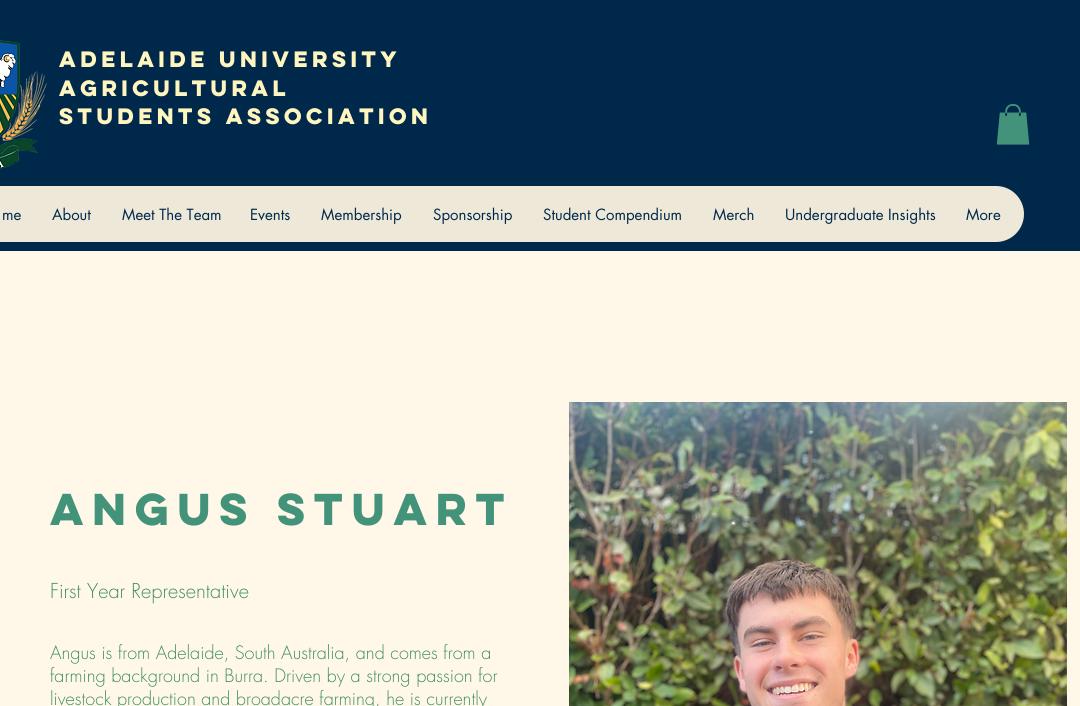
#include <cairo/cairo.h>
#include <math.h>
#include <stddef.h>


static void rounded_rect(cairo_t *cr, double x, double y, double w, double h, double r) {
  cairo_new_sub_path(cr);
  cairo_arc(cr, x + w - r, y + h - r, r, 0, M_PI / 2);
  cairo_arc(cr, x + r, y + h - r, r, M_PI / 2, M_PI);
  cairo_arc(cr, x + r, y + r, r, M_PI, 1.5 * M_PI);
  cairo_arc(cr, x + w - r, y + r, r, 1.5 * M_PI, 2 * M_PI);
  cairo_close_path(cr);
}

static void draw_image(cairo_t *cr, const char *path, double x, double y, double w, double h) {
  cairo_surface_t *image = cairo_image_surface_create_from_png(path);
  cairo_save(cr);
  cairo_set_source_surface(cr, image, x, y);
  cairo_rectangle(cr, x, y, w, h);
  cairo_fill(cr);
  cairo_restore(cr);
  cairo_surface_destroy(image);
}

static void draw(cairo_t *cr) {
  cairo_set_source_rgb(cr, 1, 248 / 255.0, 233 / 255.0);
  cairo_paint(cr);
  cairo_set_source_rgb(cr, 0, 40 / 255.0, 75 / 255.0);
  cairo_rectangle(cr, 0, 0, 1080, 251);
  cairo_fill(cr);
  draw_image(cr, "images/1.png", 0, 40, 47, 129);
  cairo_set_source_rgb(cr, 238 / 255.0, 232 / 255.0, 216 / 255.0);
  rounded_rect(cr, -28, 186, 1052, 56, 28);
  cairo_fill(cr);
  draw_image(cr, "images/2.png", 996, 104, 34, 41);
  draw_image(cr, "images/3.png", 569, 402, 498, 304);
  cairo_select_font_face(cr, "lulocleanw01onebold", CAIRO_FONT_SLANT_NORMAL, CAIRO_FONT_WEIGHT_BOLD);
  cairo_set_font_size(cr, 20);
  cairo_set_source_rgb(cr, 1, 245 / 255.0, 190 / 255.0);
  cairo_move_to(cr, 59, 67);
  cairo_show_text(cr, "Adelaide University");
  cairo_move_to(cr, 59, 96);
  cairo_show_text(cr, "Agricultural");
  cairo_move_to(cr, 59, 124);
  cairo_show_text(cr, "Students Association");
  cairo_select_font_face(cr, "futura", CAIRO_FONT_SLANT_NORMAL, CAIRO_FONT_WEIGHT_NORMAL);
  cairo_set_font_size(cr, 15);
  cairo_set_source_rgb(cr, 0, 40 / 255.0, 75 / 255.0);
  cairo_move_to(cr, 2, 220);
  cairo_show_text(cr, "me");
  cairo_move_to(cr, 52, 220);
  cairo_show_text(cr, "About");
  cairo_move_to(cr, 122, 220);
  cairo_show_text(cr, "Meet The Team");
  cairo_move_to(cr, 250, 220);
  cairo_show_text(cr, "Events");
  cairo_move_to(cr, 321, 220);
  cairo_show_text(cr, "Membership");
  cairo_move_to(cr, 433, 220);
  cairo_show_text(cr, "Sponsorship");
  cairo_move_to(cr, 543, 220);
  cairo_show_text(cr, "Student Compendium");
  cairo_move_to(cr, 713, 220);
  cairo_show_text(cr, "Merch");
  cairo_move_to(cr, 785, 220);
  cairo_show_text(cr, "Undergraduate Insights");
  cairo_move_to(cr, 966, 220);
  cairo_show_text(cr, "More");
  cairo_select_font_face(cr, "lulocleanw01onebold", CAIRO_FONT_SLANT_NORMAL, CAIRO_FONT_WEIGHT_BOLD);
  cairo_set_font_size(cr, 40);
  cairo_set_source_rgb(cr, 67 / 255.0, 147 / 255.0, 123 / 255.0);
  cairo_move_to(cr, 50, 525);
  cairo_show_text(cr, "Angus Stuart");
  cairo_select_font_face(cr, "futura Light", CAIRO_FONT_SLANT_NORMAL, CAIRO_FONT_WEIGHT_NORMAL);
  cairo_set_font_size(cr, 20);
  cairo_set_source_rgb(cr, 65 / 255.0, 143 / 255.0, 97 / 255.0);
  cairo_move_to(cr, 50, 598);
  cairo_show_text(cr, "First Year Representative");
  cairo_set_font_size(cr, 18);
  cairo_move_to(cr, 50, 659);
  cairo_show_text(cr, "Angus is from Adelaide, South Australia, and comes from a");
  cairo_move_to(cr, 50, 682);
  cairo_show_text(cr, "farming background in Burra. Driven by a strong passion for");
  cairo_move_to(cr, 50, 705);
  cairo_show_text(cr, "livestock production and broadacre farming, he is currently");
}

int main(void) {
  cairo_surface_t *surface = cairo_image_surface_create(CAIRO_FORMAT_RGB24, 1080, 706);
  cairo_t *cr = cairo_create(surface);
  cairo_font_options_t *options = cairo_font_options_create();
  cairo_font_options_set_hint_metrics(options, CAIRO_HINT_METRICS_OFF);
  cairo_font_options_set_hint_style(options, CAIRO_HINT_STYLE_NONE);
  cairo_set_font_options(cr, options);
  cairo_set_miter_limit(cr, 4);
  draw(cr);
  cairo_surface_write_to_png(surface, "out.png");
  cairo_font_options_destroy(options);
  cairo_destroy(cr);
  cairo_surface_destroy(surface);
  return 0;
}
